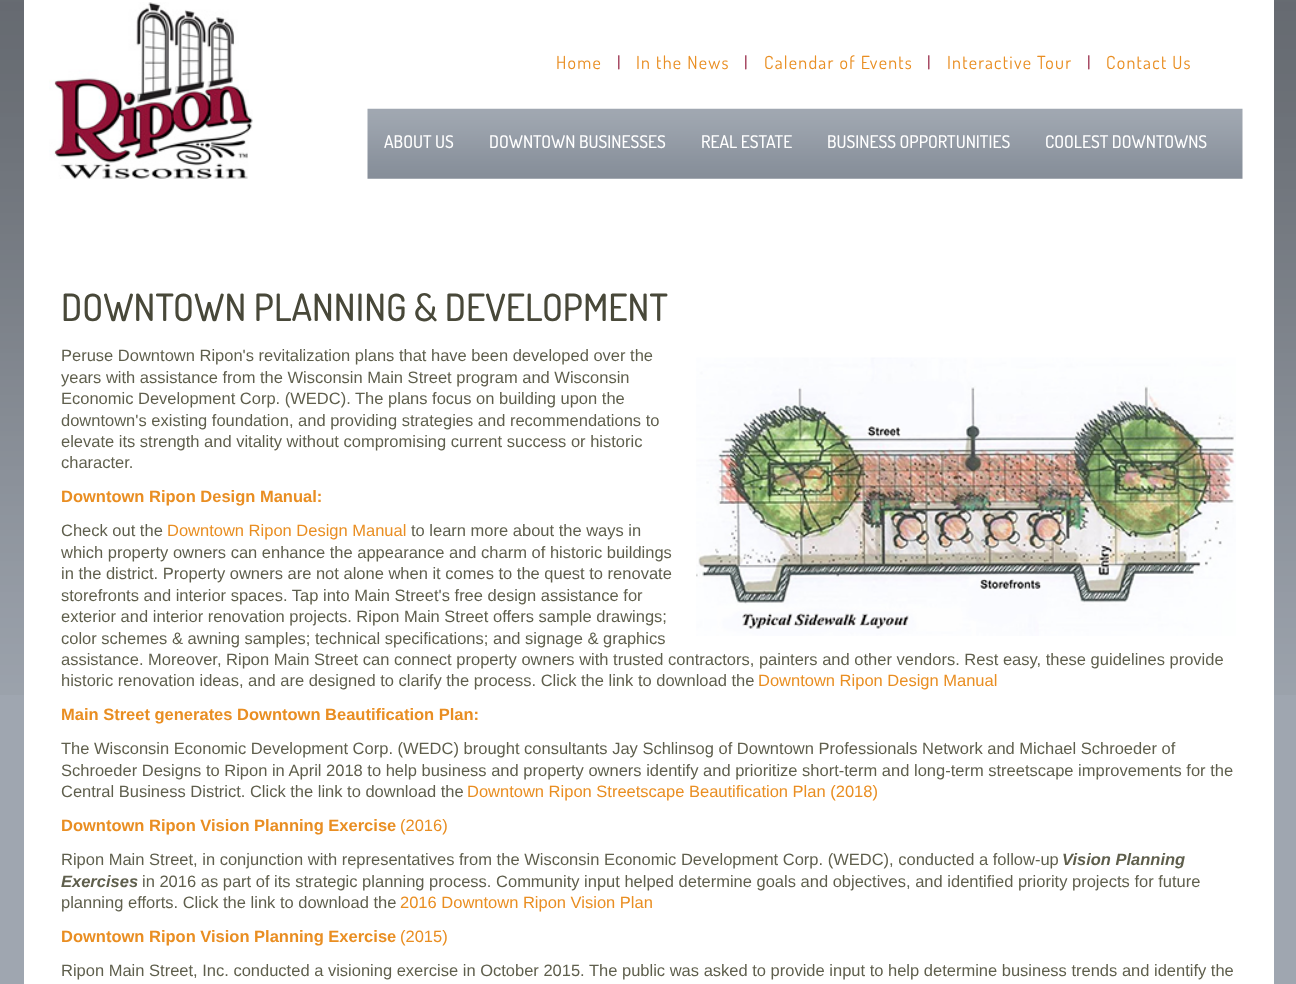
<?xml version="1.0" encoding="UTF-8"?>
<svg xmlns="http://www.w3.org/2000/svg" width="1296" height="984">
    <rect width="100%" height="100%" fill="#9FA6B0"/>
    <image x="0" y="0" width="1296" height="695" href="img_01.png"/>
    <rect x="24" y="0" width="1250" height="984" fill="#FFFFFF"/>
    <image x="49" y="2" width="204" height="177" href="img_02.png"/>
    <text x="556" y="69" font-family="Dosis" font-size="18" letter-spacing="1.25" fill="#E98E22">Home</text>
    <text x="617" y="69" font-family="Dosis" font-size="18" letter-spacing="1.25" fill="#901C3B">|</text>
    <text x="636" y="69" font-family="Dosis" font-size="18" letter-spacing="1.25" fill="#E98E22">In the News</text>
    <text x="744" y="69" font-family="Dosis" font-size="18" letter-spacing="1.25" fill="#901C3B">|</text>
    <text x="764" y="69" font-family="Dosis" font-size="18" letter-spacing="1.25" fill="#E98E22">Calendar of Events</text>
    <text x="927" y="69" font-family="Dosis" font-size="18" letter-spacing="1.25" fill="#901C3B">|</text>
    <text x="947" y="69" font-family="Dosis" font-size="18" letter-spacing="1.25" fill="#E98E22">Interactive Tour</text>
    <text x="1087" y="69" font-family="Dosis" font-size="18" letter-spacing="1.25" fill="#901C3B">|</text>
    <text x="1106" y="69" font-family="Dosis" font-size="18" letter-spacing="1.25" fill="#E98E22">Contact Us</text>
    <image x="367" y="108" width="876" height="71" href="img_03.png"/>
    <text x="384" y="148" font-family="Dosis" font-size="17.5" font-weight="500" fill="#FFFFFF">ABOUT US</text>
    <text x="489" y="148" font-family="Dosis" font-size="17.5" font-weight="500" fill="#FFFFFF">DOWNTOWN BUSINESSES</text>
    <text x="701" y="148" font-family="Dosis" font-size="17.5" font-weight="500" fill="#FFFFFF">REAL ESTATE</text>
    <text x="827" y="148" font-family="Dosis" font-size="17.5" font-weight="500" fill="#FFFFFF">BUSINESS OPPORTUNITIES</text>
    <text x="1045" y="148" font-family="Dosis" font-size="17.5" font-weight="500" fill="#FFFFFF">COOLEST DOWNTOWNS</text>
    <text x="61" y="321" font-family="Dosis" font-size="37.5" font-weight="500" fill="#484839">DOWNTOWN PLANNING &amp; DEVELOPMENT</text>
    <text x="61" y="361" font-family="Liberation Sans" font-size="16.5" fill="#5F5F4D">Peruse Downtown Ripon's revitalization plans that have been developed over the</text>
    <image x="696" y="357" width="540" height="279" href="img_04.png"/>
    <text font-family="Liberation Sans" font-size="16.5" fill="#5F5F4D">
        <tspan x="61" y="383">years with assistance from the Wisconsin Main Street program and Wisconsin</tspan>
        <tspan x="61" y="404">Economic Development Corp. (WEDC). The plans focus on building upon the</tspan>
        <tspan x="61" y="426">downtown's existing foundation, and providing strategies and recommendations to</tspan>
        <tspan x="61" y="447">elevate its strength and vitality without compromising current success or historic</tspan>
        <tspan x="61" y="468">character.</tspan>
    </text>
    <text x="61" y="502" font-family="Liberation Sans" font-size="16.5" font-weight="700" fill="#E98E22">Downtown Ripon Design Manual:</text>
    <text x="61" y="536" font-family="Liberation Sans" font-size="16.5" fill="#5F5F4D">Check out the</text>
    <text x="167" y="536" font-family="Liberation Sans" font-size="16.5" fill="#E98E22">Downtown Ripon Design Manual</text>
    <text x="411" y="536" font-family="Liberation Sans" font-size="16.5" fill="#5F5F4D">to learn more about the ways in</text>
    <text font-family="Liberation Sans" font-size="16.5" fill="#5F5F4D">
        <tspan x="61" y="558">which property owners can enhance the appearance and charm of historic buildings</tspan>
        <tspan x="61" y="579">in the district. Property owners are not alone when it comes to the quest to renovate</tspan>
        <tspan x="61" y="601">storefronts and interior spaces. Tap into Main Street's free design assistance for</tspan>
        <tspan x="61" y="622">exterior and interior renovation projects. Ripon Main Street offers sample drawings;</tspan>
        <tspan x="61" y="644">color schemes &amp; awning samples; technical specifications; and signage &amp; graphics</tspan>
        <tspan x="61" y="665">assistance. Moreover, Ripon Main Street can connect property owners with trusted contractors, painters and other vendors. Rest easy, these guidelines provide</tspan>
        <tspan x="61" y="686">historic renovation ideas, and are designed to clarify the process. Click the link to download the</tspan>
    </text>
    <text x="758" y="686" font-family="Liberation Sans" font-size="16.5" fill="#E98E22">Downtown Ripon Design Manual</text>
    <text x="61" y="720" font-family="Liberation Sans" font-size="16.5" font-weight="700" fill="#E98E22">Main Street generates Downtown Beautification Plan:</text>
    <text font-family="Liberation Sans" font-size="16.5" fill="#5F5F4D">
        <tspan x="61" y="754">The Wisconsin Economic Development Corp. (WEDC) brought consultants Jay Schlinsog of Downtown Professionals Network and Michael Schroeder of</tspan>
        <tspan x="61" y="776">Schroeder Designs to Ripon in April 2018 to help business and property owners identify and prioritize short-term and long-term streetscape improvements for the</tspan>
        <tspan x="61" y="797">Central Business District. Click the link to download the</tspan>
    </text>
    <text x="467" y="797" font-family="Liberation Sans" font-size="16.5" fill="#E98E22">Downtown Ripon Streetscape Beautification Plan (2018)</text>
    <text x="61" y="831" font-family="Liberation Sans" font-size="16.5" font-weight="700" fill="#E98E22">Downtown Ripon Vision Planning Exercise</text>
    <text x="400" y="831" font-family="Liberation Sans" font-size="16.5" fill="#E98E22">(2016)</text>
    <text x="61" y="865" font-family="Liberation Sans" font-size="16.5" fill="#5F5F4D">Ripon Main Street, in conjunction with representatives from the Wisconsin Economic Development Corp. (WEDC), conducted a follow-up</text>
    <text x="1062" y="865" font-family="Liberation Sans" font-size="16.5" font-weight="700" font-style="italic" fill="#5F5F4D">Vision Planning</text>
    <text x="61" y="887" font-family="Liberation Sans" font-size="16.5" font-weight="700" font-style="italic" fill="#5F5F4D">Exercises</text>
    <text x="142" y="887" font-family="Liberation Sans" font-size="16.5" fill="#5F5F4D">in 2016 as part of its strategic planning process. Community input helped determine goals and objectives, and identified priority projects for future</text>
    <text x="61" y="908" font-family="Liberation Sans" font-size="16.5" fill="#5F5F4D">planning efforts. Click the link to download the</text>
    <text x="400" y="908" font-family="Liberation Sans" font-size="16.5" fill="#E98E22">2016 Downtown Ripon Vision Plan</text>
    <text x="61" y="942" font-family="Liberation Sans" font-size="16.5" font-weight="700" fill="#E98E22">Downtown Ripon Vision Planning Exercise</text>
    <text x="400" y="942" font-family="Liberation Sans" font-size="16.5" fill="#E98E22">(2015)</text>
    <text x="61" y="976" font-family="Liberation Sans" font-size="16.5" fill="#5F5F4D">Ripon Main Street, Inc. conducted a visioning exercise in October 2015. The public was asked to provide input to help determine business trends and identify the</text>
</svg>
